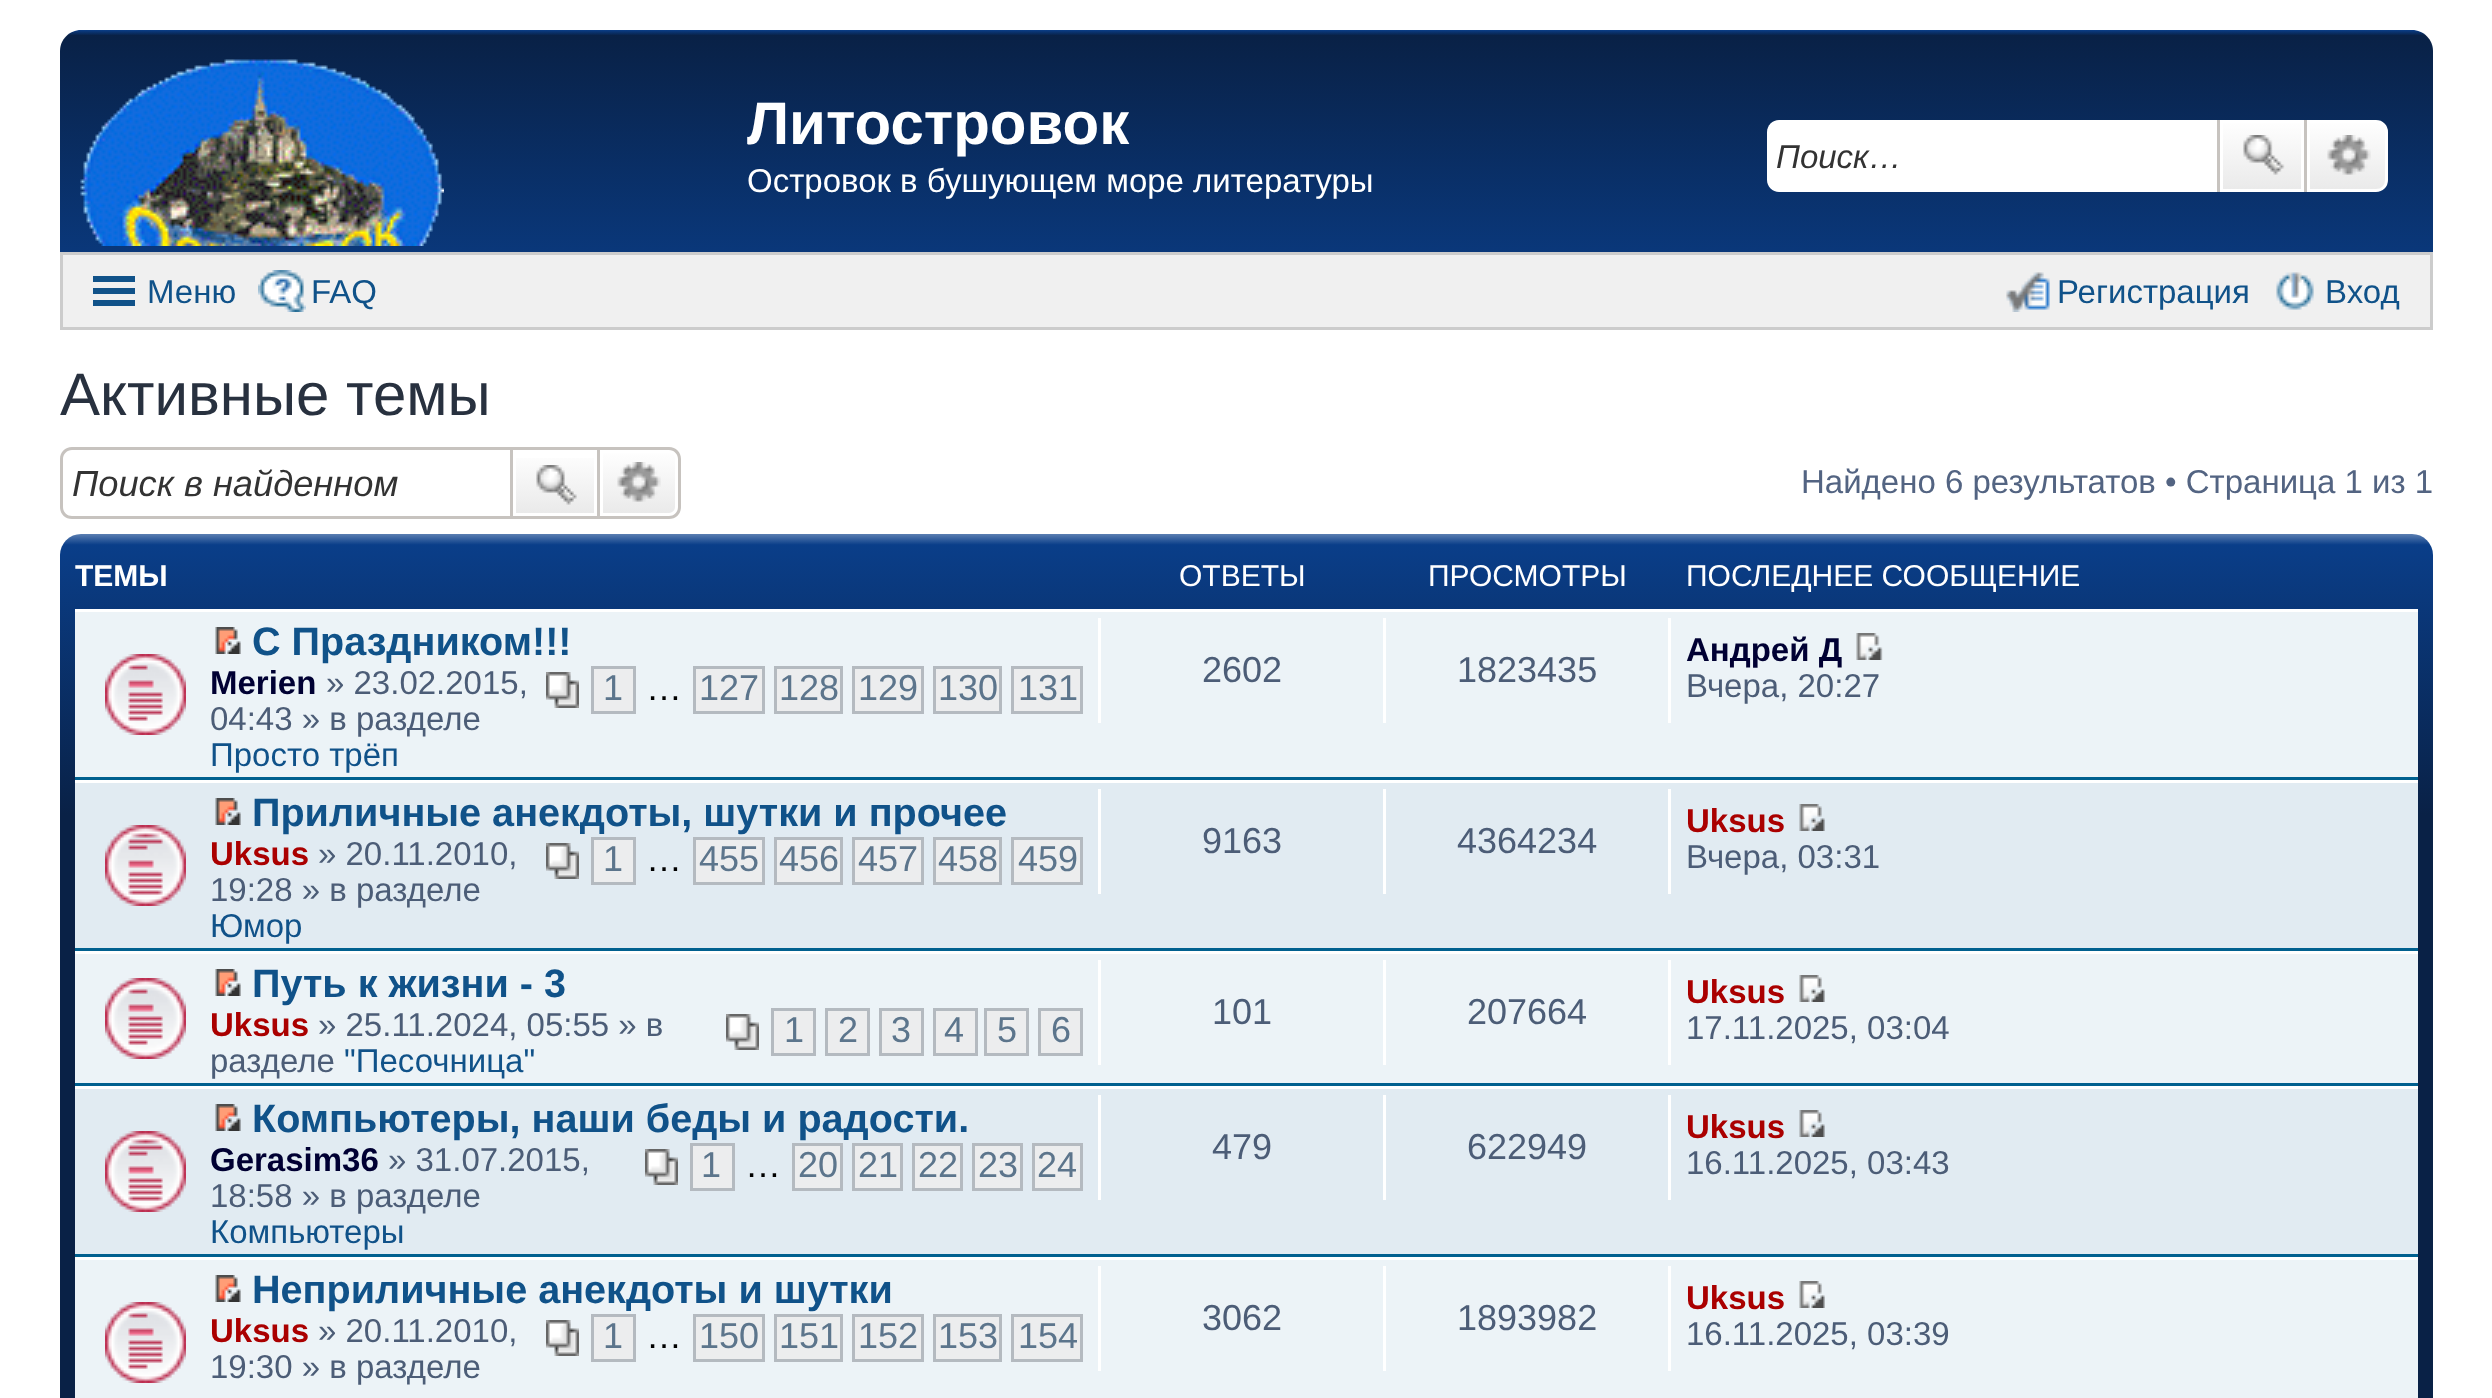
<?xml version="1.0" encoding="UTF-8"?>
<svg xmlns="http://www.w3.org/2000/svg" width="2492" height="1398">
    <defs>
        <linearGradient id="g1" gradientUnits="userSpaceOnUse" x1="1247" y1="30" x2="1247" y2="306"><stop offset="0" stop-color="#0A3E89"/><stop offset="0.02" stop-color="#092146"/><stop offset="1" stop-color="#0A3D87"/></linearGradient>
        <linearGradient id="g2" gradientUnits="userSpaceOnUse" x1="2262" y1="120" x2="2262" y2="192"><stop offset="0" stop-color="#FFFFFF"/><stop offset="1" stop-color="#E9E9E9"/></linearGradient>
        <linearGradient id="g3" gradientUnits="userSpaceOnUse" x1="2348" y1="120" x2="2348" y2="192"><stop offset="0" stop-color="#FFFFFF"/><stop offset="1" stop-color="#E9E9E9"/></linearGradient>
        <linearGradient id="g4" gradientUnits="userSpaceOnUse" x1="555" y1="450" x2="555" y2="516"><stop offset="0" stop-color="#FFFFFF"/><stop offset="1" stop-color="#E9E9E9"/></linearGradient>
        <linearGradient id="g5" gradientUnits="userSpaceOnUse" x1="639" y1="450" x2="639" y2="516"><stop offset="0" stop-color="#FFFFFF"/><stop offset="1" stop-color="#E9E9E9"/></linearGradient>
        <linearGradient id="g6" gradientUnits="userSpaceOnUse" x1="1247" y1="534" x2="1247" y2="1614"><stop offset="0" stop-color="#5B7FB2"/><stop offset="0.01" stop-color="#0A3E89"/><stop offset="0.26" stop-color="#092146"/></linearGradient>
    </defs>
    <rect width="100%" height="100%" fill="#FFFFFF"/>
    <path d="M 81 30 H 2412 C 2423.5 30 2433 39.5 2433 51 V 252 H 60 V 51 C 60 39.5 69.5 30 81 30 Z" fill="url(#g1)"/>
    <image x="80" y="59" width="364" height="187" href="img_01.png"/>
    <text x="747" y="144" font-family="Liberation Sans" font-size="60" font-weight="700" fill="#FFFFFF">Литостровок</text>
    <text x="747" y="192" font-family="Liberation Sans" font-size="33" fill="#FFFFFF">Островок в бушующем море литературы</text>
    <path d="M 1779 120 H 2217 V 192 H 1779 C 1772.5 192 1767 186.5 1767 180 V 132 C 1767 125.5 1772.5 120 1779 120 Z" fill="#FFFFFF"/>
    <text x="1776" y="168" font-family="Liberation Sans" font-size="33" font-style="italic" fill="#333333">Поиск…</text>
    <rect x="2223" y="123" width="78" height="66" fill="url(#g2)"/>
    <rect x="2221.5" y="121.5" width="81" height="69" fill="none" stroke="#FFFFFF" stroke-width="3"/>
    <rect x="2304" y="120" width="3" height="72" fill="#C7C3BF"/>
    <rect x="2217" y="120" width="3" height="72" fill="#C7C3BF"/>
    <image x="2243" y="135" width="42" height="40" href="img_02.png"/>
    <path d="M 2308.5 121.5 H 2376 C 2382 121.5 2386.5 126 2386.5 132 V 180 C 2386.5 186 2382 190.5 2376 190.5 H 2308.5 Z" fill="url(#g3)" stroke="#FFFFFF" stroke-width="3"/>
    <image x="2327" y="135" width="44" height="40" href="img_03.png"/>
    <rect x="61.5" y="253.5" width="2370" height="75" fill="#F0F0F0" stroke="#CCCCCC" stroke-width="3"/>
    <rect x="93" y="276" width="42" height="6" fill="#105289"/>
    <rect x="93" y="288" width="42" height="6" fill="#105289"/>
    <rect x="93" y="300" width="42" height="6" fill="#105289"/>
    <text x="147" y="303" font-family="Liberation Sans" font-size="33" fill="#105289">Меню</text>
    <image x="258" y="270" width="48" height="42" href="img_04.png"/>
    <text x="311" y="303" font-family="Liberation Sans" font-size="33" fill="#105289">FAQ</text>
    <image x="2006" y="272" width="44" height="40" href="img_05.png"/>
    <text x="2057" y="303" font-family="Liberation Sans" font-size="33" fill="#105289">Регистрация</text>
    <image x="2276" y="272" width="38" height="38" href="img_06.png"/>
    <text x="2325" y="303" font-family="Liberation Sans" font-size="33" fill="#105289">Вход</text>
    <text x="60" y="415" font-family="Liberation Sans" font-size="60" fill="#28313F">Активные темы</text>
    <path d="M 72 447 H 510 V 519 H 72 C 65 519 60 514 60 507 V 459 C 60 452 65 447 72 447 Z M 72 450 H 510 V 516 H 72 C 67 516 63 512 63 507 V 459 C 63 454 67 450 72 450 Z" fill="#C7C3BF" fill-rule="evenodd"/>
    <text x="72" y="496" font-family="Liberation Sans" font-size="36.25" font-style="italic" fill="#333333">Поиск в найденном</text>
    <rect x="516" y="458" width="78" height="55" fill="url(#g4)"/>
    <rect x="511.5" y="448.5" width="87" height="69" fill="none" stroke="#C7C3BF" stroke-width="3"/>
    <image x="536" y="465" width="41" height="40" href="img_07.png"/>
    <path d="M 601.5 451.5 H 669 C 673 451.5 676.5 455 676.5 459 V 507 C 676.5 511 673 514.5 669 514.5 H 601.5 Z" fill="url(#g5)" stroke="#FFFFFF" stroke-width="3"/>
    <path d="M 600 447 H 669 C 676 447 681 452 681 459 V 507 C 681 514 676 519 669 519 H 600 Z M 600 450 H 669 C 674 450 678 454 678 459 V 507 C 678 512 674 516 669 516 H 600 Z" fill="#C7C3BF" fill-rule="evenodd"/>
    <image x="617" y="462" width="44" height="40" href="img_08.png"/>
    <text x="1801" y="493" font-family="Liberation Sans" font-size="33" fill="#536482">Найдено 6 результатов • Страница 1 из 1</text>
    <rect x="60" y="534" width="2373" height="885" rx="21" fill="url(#g6)"/>
    <text x="75" y="586" font-family="Liberation Sans" font-size="30" font-weight="700" fill="#FFFFFF">ТЕМЫ</text>
    <text x="1179" y="586" font-family="Liberation Sans" font-size="30" fill="#FFFFFF">ОТВЕТЫ</text>
    <text x="1428" y="586" font-family="Liberation Sans" font-size="30" fill="#FFFFFF">ПРОСМОТРЫ</text>
    <text x="1686" y="586" font-family="Liberation Sans" font-size="30" fill="#FFFFFF">ПОСЛЕДНЕЕ СООБЩЕНИЕ</text>
    <rect x="75" y="612" width="2343" height="165" fill="#ECF3F7"/>
    <rect x="75" y="609" width="2343" height="3" fill="#FFFFFF"/>
    <rect x="75" y="777" width="2343" height="3" fill="#00608F"/>
    <image x="105" y="654" width="81" height="81" href="img_09.png"/>
    <image x="215" y="627" width="26" height="27" href="img_10.png"/>
    <text x="252" y="655" font-family="Liberation Sans" font-size="39.6" font-weight="700" fill="#105289">С Праздником!!!</text>
    <text x="210" y="694" font-family="Liberation Sans" font-size="33" font-weight="700" fill="#000033">Merien</text>
    <text x="326" y="694" font-family="Liberation Sans" font-size="33" fill="#4C5D77">» 23.02.2015,</text>
    <image x="546" y="672" width="33" height="36" href="img_11.png"/>
    <rect x="592.5" y="667.5" width="42" height="45" fill="#ECEDEE" stroke="#B4BAC0" stroke-width="3"/>
    <text x="603" y="700" font-family="Liberation Sans" font-size="36" fill="#5C758C">1</text>
    <text x="646" y="700" font-family="Liberation Sans" font-size="36" fill="#000000">…</text>
    <rect x="694.5" y="667.5" width="69" height="45" fill="#ECEDEE" stroke="#B4BAC0" stroke-width="3"/>
    <text x="699" y="700" font-family="Liberation Sans" font-size="36" fill="#5C758C">127</text>
    <rect x="775.5" y="667.5" width="66" height="45" fill="#ECEDEE" stroke="#B4BAC0" stroke-width="3"/>
    <text x="779" y="700" font-family="Liberation Sans" font-size="36" fill="#5C758C">128</text>
    <rect x="853.5" y="667.5" width="69" height="45" fill="#ECEDEE" stroke="#B4BAC0" stroke-width="3"/>
    <text x="858" y="700" font-family="Liberation Sans" font-size="36" fill="#5C758C">129</text>
    <rect x="934.5" y="667.5" width="66" height="45" fill="#ECEDEE" stroke="#B4BAC0" stroke-width="3"/>
    <text x="938" y="700" font-family="Liberation Sans" font-size="36" fill="#5C758C">130</text>
    <rect x="1012.5" y="667.5" width="69" height="45" fill="#ECEDEE" stroke="#B4BAC0" stroke-width="3"/>
    <text x="1018" y="700" font-family="Liberation Sans" font-size="36" fill="#5C758C">131</text>
    <text x="210" y="730" font-family="Liberation Sans" font-size="33" fill="#4C5D77">04:43 » в разделе</text>
    <text x="210" y="766" font-family="Liberation Sans" font-size="33" fill="#105289">Просто трёп</text>
    <rect x="1098" y="618" width="3" height="105" fill="#FFFFFF"/>
    <text x="1202" y="682" font-family="Liberation Sans" font-size="36" fill="#4C5D77">2602</text>
    <rect x="1383" y="618" width="3" height="105" fill="#FFFFFF"/>
    <text x="1457" y="682" font-family="Liberation Sans" font-size="36" fill="#4C5D77">1823435</text>
    <rect x="1668" y="618" width="3" height="105" fill="#FFFFFF"/>
    <text x="1686" y="661" font-family="Liberation Sans" font-size="33" font-weight="700" fill="#000033">Андрей Д</text>
    <image x="1856" y="633" width="27" height="27" href="img_12.png"/>
    <text x="1686" y="697" font-family="Liberation Sans" font-size="33" fill="#4C5D77">Вчера, 20:27</text>
    <rect x="75" y="783" width="2343" height="165" fill="#E1EBF2"/>
    <rect x="75" y="780" width="2343" height="3" fill="#FFFFFF"/>
    <rect x="75" y="948" width="2343" height="3" fill="#00608F"/>
    <image x="105" y="825" width="81" height="81" href="img_13.png"/>
    <image x="215" y="798" width="26" height="27" href="img_14.png"/>
    <text x="252" y="826" font-family="Liberation Sans" font-size="39.6" font-weight="700" fill="#105289">Приличные анекдоты, шутки и прочее</text>
    <text x="210" y="865" font-family="Liberation Sans" font-size="33" font-weight="700" fill="#AA0000">Uksus</text>
    <text x="318" y="865" font-family="Liberation Sans" font-size="33" fill="#4C5D77">» 20.11.2010,</text>
    <image x="546" y="843" width="33" height="36" href="img_15.png"/>
    <rect x="592.5" y="838.5" width="42" height="45" fill="#ECEDEE" stroke="#B4BAC0" stroke-width="3"/>
    <text x="603" y="871" font-family="Liberation Sans" font-size="36" fill="#5C758C">1</text>
    <text x="646" y="871" font-family="Liberation Sans" font-size="36" fill="#000000">…</text>
    <rect x="694.5" y="838.5" width="69" height="45" fill="#ECEDEE" stroke="#B4BAC0" stroke-width="3"/>
    <text x="699" y="871" font-family="Liberation Sans" font-size="36" fill="#5C758C">455</text>
    <rect x="775.5" y="838.5" width="66" height="45" fill="#ECEDEE" stroke="#B4BAC0" stroke-width="3"/>
    <text x="779" y="871" font-family="Liberation Sans" font-size="36" fill="#5C758C">456</text>
    <rect x="853.5" y="838.5" width="69" height="45" fill="#ECEDEE" stroke="#B4BAC0" stroke-width="3"/>
    <text x="858" y="871" font-family="Liberation Sans" font-size="36" fill="#5C758C">457</text>
    <rect x="934.5" y="838.5" width="66" height="45" fill="#ECEDEE" stroke="#B4BAC0" stroke-width="3"/>
    <text x="938" y="871" font-family="Liberation Sans" font-size="36" fill="#5C758C">458</text>
    <rect x="1012.5" y="838.5" width="69" height="45" fill="#ECEDEE" stroke="#B4BAC0" stroke-width="3"/>
    <text x="1018" y="871" font-family="Liberation Sans" font-size="36" fill="#5C758C">459</text>
    <text x="210" y="901" font-family="Liberation Sans" font-size="33" fill="#4C5D77">19:28 » в разделе</text>
    <text x="210" y="937" font-family="Liberation Sans" font-size="33" fill="#105289">Юмор</text>
    <rect x="1098" y="789" width="3" height="105" fill="#FFFFFF"/>
    <text x="1202" y="853" font-family="Liberation Sans" font-size="36" fill="#4C5D77">9163</text>
    <rect x="1383" y="789" width="3" height="105" fill="#FFFFFF"/>
    <text x="1457" y="853" font-family="Liberation Sans" font-size="36" fill="#4C5D77">4364234</text>
    <rect x="1668" y="789" width="3" height="105" fill="#FFFFFF"/>
    <text x="1686" y="832" font-family="Liberation Sans" font-size="33" font-weight="700" fill="#AA0000">Uksus</text>
    <image x="1799" y="804" width="26" height="27" href="img_16.png"/>
    <text x="1686" y="868" font-family="Liberation Sans" font-size="33" fill="#4C5D77">Вчера, 03:31</text>
    <rect x="75" y="954" width="2343" height="129" fill="#ECF3F7"/>
    <rect x="75" y="951" width="2343" height="3" fill="#FFFFFF"/>
    <rect x="75" y="1083" width="2343" height="3" fill="#00608F"/>
    <image x="105" y="978" width="81" height="81" href="img_09.png"/>
    <image x="215" y="969" width="26" height="27" href="img_10.png"/>
    <text x="252" y="997" font-family="Liberation Sans" font-size="39.6" font-weight="700" fill="#105289">Путь к жизни - 3</text>
    <text x="210" y="1036" font-family="Liberation Sans" font-size="33" font-weight="700" fill="#AA0000">Uksus</text>
    <text x="318" y="1036" font-family="Liberation Sans" font-size="33" fill="#4C5D77">» 25.11.2024, 05:55 » в</text>
    <image x="726" y="1014" width="33" height="36" href="img_17.png"/>
    <rect x="772.5" y="1009.5" width="42" height="45" fill="#ECEDEE" stroke="#B4BAC0" stroke-width="3"/>
    <text x="784" y="1042" font-family="Liberation Sans" font-size="36" fill="#5C758C">1</text>
    <rect x="826.5" y="1009.5" width="42" height="45" fill="#ECEDEE" stroke="#B4BAC0" stroke-width="3"/>
    <text x="838" y="1042" font-family="Liberation Sans" font-size="36" fill="#5C758C">2</text>
    <rect x="880.5" y="1009.5" width="42" height="45" fill="#ECEDEE" stroke="#B4BAC0" stroke-width="3"/>
    <text x="891" y="1042" font-family="Liberation Sans" font-size="36" fill="#5C758C">3</text>
    <rect x="934.5" y="1009.5" width="42" height="45" fill="#ECEDEE" stroke="#B4BAC0" stroke-width="3"/>
    <text x="944" y="1042" font-family="Liberation Sans" font-size="36" fill="#5C758C">4</text>
    <rect x="985.5" y="1009.5" width="42" height="45" fill="#ECEDEE" stroke="#B4BAC0" stroke-width="3"/>
    <text x="997" y="1042" font-family="Liberation Sans" font-size="36" fill="#5C758C">5</text>
    <rect x="1039.5" y="1009.5" width="42" height="45" fill="#ECEDEE" stroke="#B4BAC0" stroke-width="3"/>
    <text x="1051" y="1042" font-family="Liberation Sans" font-size="36" fill="#5C758C">6</text>
    <text x="210" y="1072" font-family="Liberation Sans" font-size="33" fill="#4C5D77">разделе</text>
    <text x="344" y="1072" font-family="Liberation Sans" font-size="33" fill="#105289">"Песочница"</text>
    <rect x="1098" y="960" width="3" height="105" fill="#FFFFFF"/>
    <text x="1212" y="1024" font-family="Liberation Sans" font-size="36" fill="#4C5D77">101</text>
    <rect x="1383" y="960" width="3" height="105" fill="#FFFFFF"/>
    <text x="1467" y="1024" font-family="Liberation Sans" font-size="36" fill="#4C5D77">207664</text>
    <rect x="1668" y="960" width="3" height="105" fill="#FFFFFF"/>
    <text x="1686" y="1003" font-family="Liberation Sans" font-size="33" font-weight="700" fill="#AA0000">Uksus</text>
    <image x="1799" y="975" width="26" height="27" href="img_18.png"/>
    <text x="1686" y="1039" font-family="Liberation Sans" font-size="33" fill="#4C5D77">17.11.2025, 03:04</text>
    <rect x="75" y="1089" width="2343" height="165" fill="#E1EBF2"/>
    <rect x="75" y="1086" width="2343" height="3" fill="#FFFFFF"/>
    <rect x="75" y="1254" width="2343" height="3" fill="#00608F"/>
    <image x="105" y="1131" width="81" height="81" href="img_13.png"/>
    <image x="215" y="1104" width="26" height="27" href="img_14.png"/>
    <text x="252" y="1132" font-family="Liberation Sans" font-size="39.6" font-weight="700" fill="#105289">Компьютеры, наши беды и радости.</text>
    <text x="210" y="1171" font-family="Liberation Sans" font-size="33" font-weight="700" fill="#000033">Gerasim36</text>
    <text x="388" y="1171" font-family="Liberation Sans" font-size="33" fill="#4C5D77">» 31.07.2015,</text>
    <image x="645" y="1149" width="33" height="36" href="img_15.png"/>
    <rect x="691.5" y="1144.5" width="42" height="45" fill="#ECEDEE" stroke="#B4BAC0" stroke-width="3"/>
    <text x="701" y="1177" font-family="Liberation Sans" font-size="36" fill="#5C758C">1</text>
    <text x="745" y="1177" font-family="Liberation Sans" font-size="36" fill="#000000">…</text>
    <rect x="793.5" y="1144.5" width="48" height="45" fill="#ECEDEE" stroke="#B4BAC0" stroke-width="3"/>
    <text x="798" y="1177" font-family="Liberation Sans" font-size="36" fill="#5C758C">20</text>
    <rect x="853.5" y="1144.5" width="48" height="45" fill="#ECEDEE" stroke="#B4BAC0" stroke-width="3"/>
    <text x="858" y="1177" font-family="Liberation Sans" font-size="36" fill="#5C758C">21</text>
    <rect x="913.5" y="1144.5" width="48" height="45" fill="#ECEDEE" stroke="#B4BAC0" stroke-width="3"/>
    <text x="918" y="1177" font-family="Liberation Sans" font-size="36" fill="#5C758C">22</text>
    <rect x="973.5" y="1144.5" width="48" height="45" fill="#ECEDEE" stroke="#B4BAC0" stroke-width="3"/>
    <text x="978" y="1177" font-family="Liberation Sans" font-size="36" fill="#5C758C">23</text>
    <rect x="1033.5" y="1144.5" width="48" height="45" fill="#ECEDEE" stroke="#B4BAC0" stroke-width="3"/>
    <text x="1037" y="1177" font-family="Liberation Sans" font-size="36" fill="#5C758C">24</text>
    <text x="210" y="1207" font-family="Liberation Sans" font-size="33" fill="#4C5D77">18:58 » в разделе</text>
    <text x="210" y="1243" font-family="Liberation Sans" font-size="33" fill="#105289">Компьютеры</text>
    <rect x="1098" y="1095" width="3" height="105" fill="#FFFFFF"/>
    <text x="1212" y="1159" font-family="Liberation Sans" font-size="36" fill="#4C5D77">479</text>
    <rect x="1383" y="1095" width="3" height="105" fill="#FFFFFF"/>
    <text x="1467" y="1159" font-family="Liberation Sans" font-size="36" fill="#4C5D77">622949</text>
    <rect x="1668" y="1095" width="3" height="105" fill="#FFFFFF"/>
    <text x="1686" y="1138" font-family="Liberation Sans" font-size="33" font-weight="700" fill="#AA0000">Uksus</text>
    <image x="1799" y="1110" width="26" height="27" href="img_16.png"/>
    <text x="1686" y="1174" font-family="Liberation Sans" font-size="33" fill="#4C5D77">16.11.2025, 03:43</text>
    <rect x="75" y="1260" width="2343" height="138" fill="#ECF3F7"/>
    <rect x="75" y="1257" width="2343" height="3" fill="#FFFFFF"/>
    <image x="105" y="1302" width="81" height="81" href="img_09.png"/>
    <image x="215" y="1275" width="26" height="27" href="img_10.png"/>
    <text x="252" y="1303" font-family="Liberation Sans" font-size="39.6" font-weight="700" fill="#105289">Неприличные анекдоты и шутки</text>
    <text x="210" y="1342" font-family="Liberation Sans" font-size="33" font-weight="700" fill="#AA0000">Uksus</text>
    <text x="318" y="1342" font-family="Liberation Sans" font-size="33" fill="#4C5D77">» 20.11.2010,</text>
    <image x="546" y="1320" width="33" height="36" href="img_11.png"/>
    <rect x="592.5" y="1315.5" width="42" height="45" fill="#ECEDEE" stroke="#B4BAC0" stroke-width="3"/>
    <text x="603" y="1348" font-family="Liberation Sans" font-size="36" fill="#5C758C">1</text>
    <text x="646" y="1348" font-family="Liberation Sans" font-size="36" fill="#000000">…</text>
    <rect x="694.5" y="1315.5" width="69" height="45" fill="#ECEDEE" stroke="#B4BAC0" stroke-width="3"/>
    <text x="699" y="1348" font-family="Liberation Sans" font-size="36" fill="#5C758C">150</text>
    <rect x="775.5" y="1315.5" width="66" height="45" fill="#ECEDEE" stroke="#B4BAC0" stroke-width="3"/>
    <text x="779" y="1348" font-family="Liberation Sans" font-size="36" fill="#5C758C">151</text>
    <rect x="853.5" y="1315.5" width="69" height="45" fill="#ECEDEE" stroke="#B4BAC0" stroke-width="3"/>
    <text x="858" y="1348" font-family="Liberation Sans" font-size="36" fill="#5C758C">152</text>
    <rect x="934.5" y="1315.5" width="66" height="45" fill="#ECEDEE" stroke="#B4BAC0" stroke-width="3"/>
    <text x="938" y="1348" font-family="Liberation Sans" font-size="36" fill="#5C758C">153</text>
    <rect x="1012.5" y="1315.5" width="69" height="45" fill="#ECEDEE" stroke="#B4BAC0" stroke-width="3"/>
    <text x="1018" y="1348" font-family="Liberation Sans" font-size="36" fill="#5C758C">154</text>
    <text x="210" y="1378" font-family="Liberation Sans" font-size="33" fill="#4C5D77">19:30 » в разделе</text>
    <rect x="1098" y="1266" width="3" height="105" fill="#FFFFFF"/>
    <text x="1202" y="1330" font-family="Liberation Sans" font-size="36" fill="#4C5D77">3062</text>
    <rect x="1383" y="1266" width="3" height="105" fill="#FFFFFF"/>
    <text x="1457" y="1330" font-family="Liberation Sans" font-size="36" fill="#4C5D77">1893982</text>
    <rect x="1668" y="1266" width="3" height="105" fill="#FFFFFF"/>
    <text x="1686" y="1309" font-family="Liberation Sans" font-size="33" font-weight="700" fill="#AA0000">Uksus</text>
    <image x="1799" y="1281" width="26" height="27" href="img_18.png"/>
    <text x="1686" y="1345" font-family="Liberation Sans" font-size="33" fill="#4C5D77">16.11.2025, 03:39</text>
</svg>
